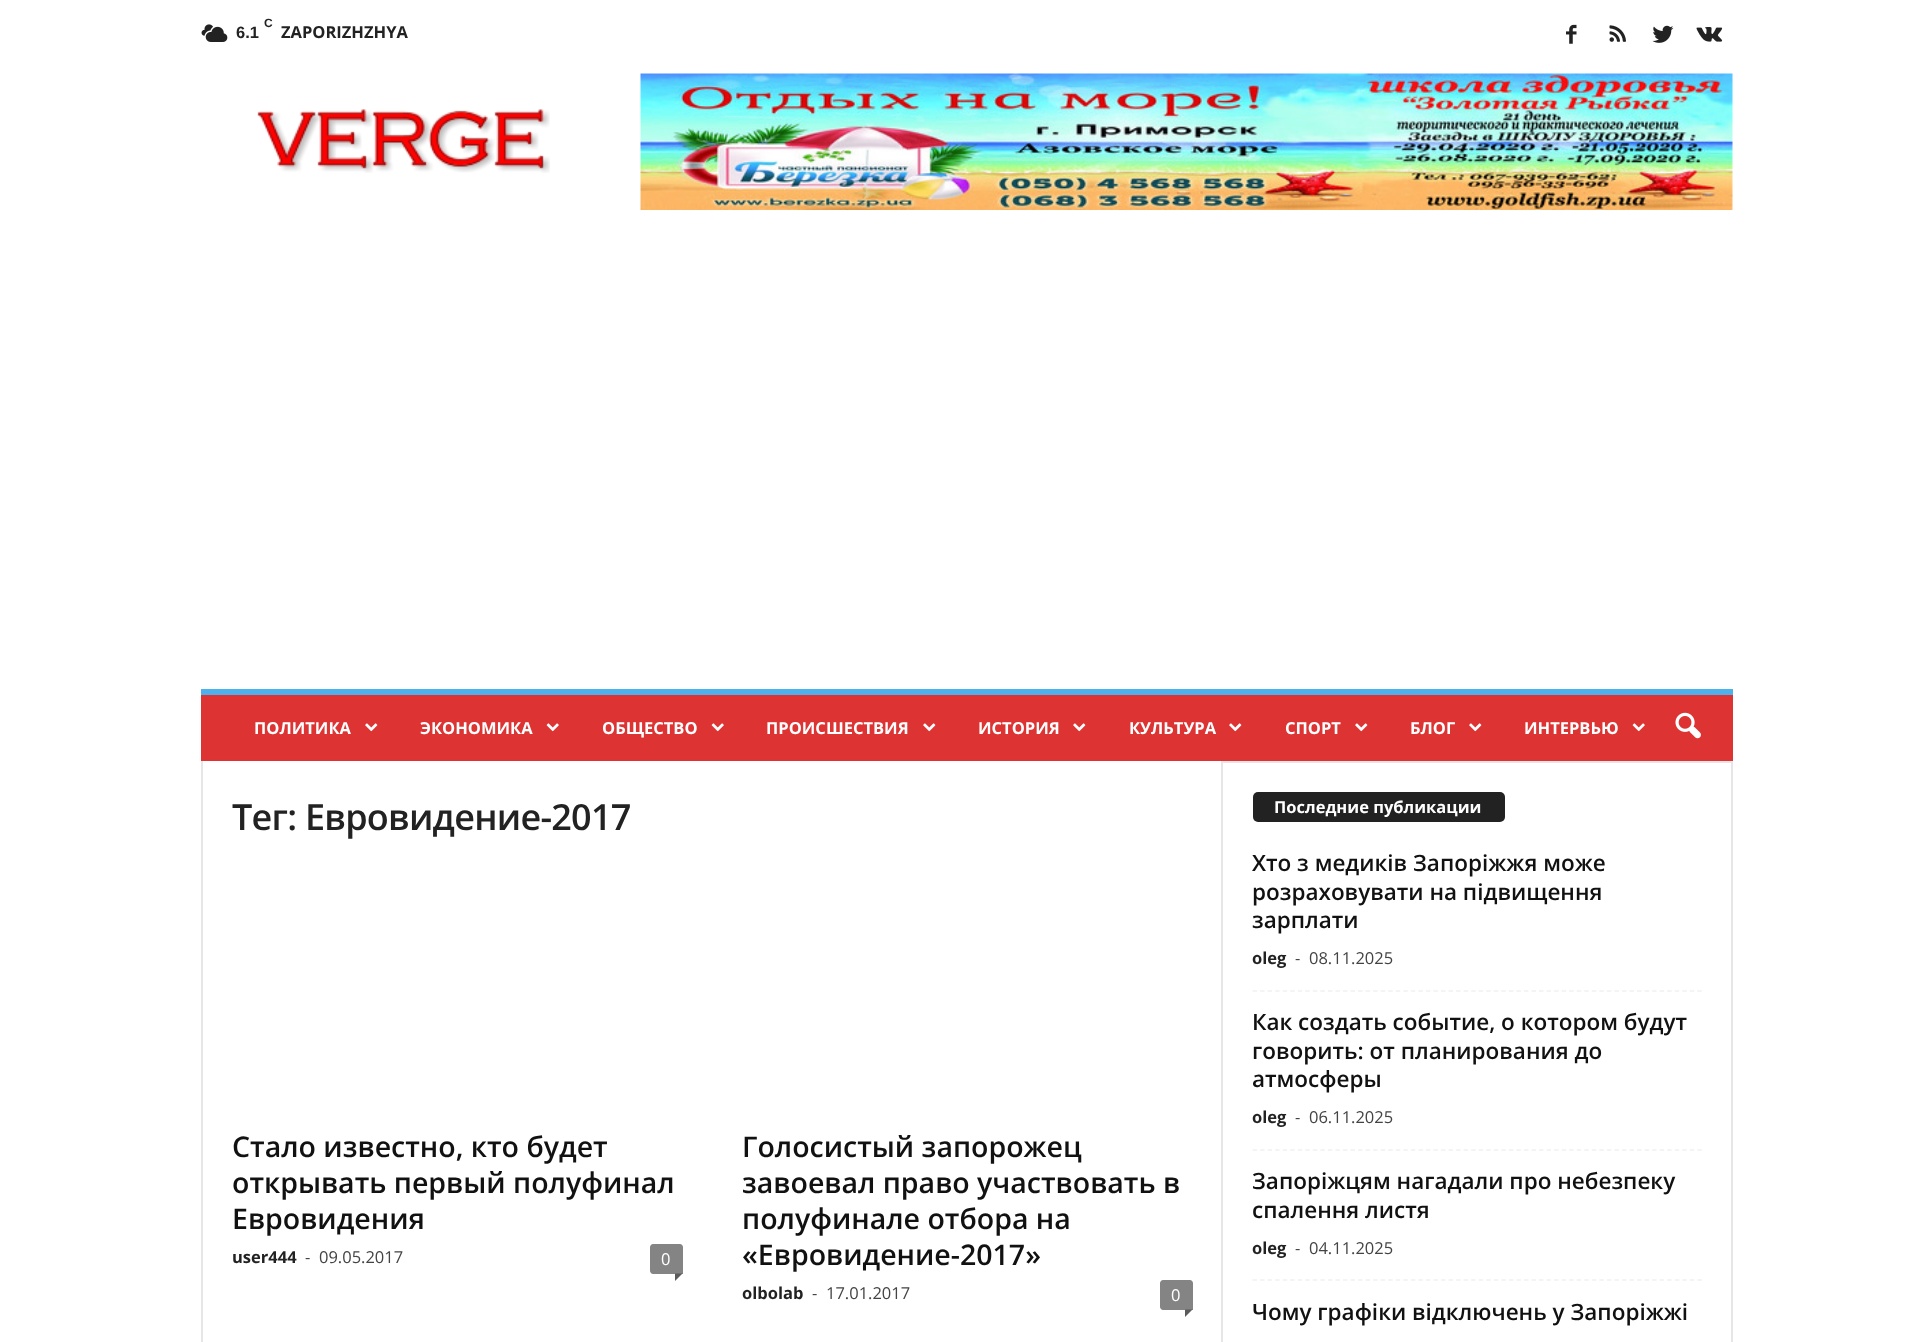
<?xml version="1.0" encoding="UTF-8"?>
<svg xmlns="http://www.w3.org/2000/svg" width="1931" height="1342">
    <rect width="100%" height="100%" fill="#FFFFFF"/>
    <image x="201" y="24" width="27" height="18" href="img_01.png"/>
    <text x="264" y="27" font-family="Liberation Sans" font-size="12" font-weight="700" fill="#222222">C</text>
    <text x="236" y="38" font-family="Liberation Sans" font-size="16.5" font-weight="700" fill="#222222">6.1</text>
    <text x="281" y="38" font-family="Open Sans" font-size="16.5" font-weight="700" fill="#222222">ZAPORIZHZHYA</text>
    <image x="1566" y="24" width="11" height="20" href="img_02.png"/>
    <image x="1609" y="25" width="17" height="17" href="img_03.png"/>
    <image x="1652" y="25" width="22" height="18" href="img_04.png"/>
    <image x="1696" y="27" width="27" height="15" href="img_05.png"/>
    <image x="257" y="109" width="293" height="64" href="img_06.png"/>
    <image x="640" y="73" width="1093" height="137" href="img_07.png"/>
    <rect x="201" y="695" width="1532" height="66" fill="#DD3333"/>
    <rect x="201" y="689" width="1532" height="6" fill="#4DB2EC"/>
    <text x="254" y="734" font-family="Open Sans" font-size="16.5" font-weight="700" fill="#FFFFFF">ПОЛИТИКА</text>
    <image x="365" y="723" width="13" height="9" href="img_08.png"/>
    <text x="420" y="734" font-family="Open Sans" font-size="16.5" font-weight="700" fill="#FFFFFF">ЭКОНОМИКА</text>
    <image x="546" y="723" width="13" height="9" href="img_09.png"/>
    <text x="602" y="734" font-family="Open Sans" font-size="16.5" font-weight="700" fill="#FFFFFF">ОБЩЕСТВО</text>
    <image x="711" y="723" width="13" height="9" href="img_09.png"/>
    <text x="766" y="734" font-family="Open Sans" font-size="16.5" font-weight="700" fill="#FFFFFF">ПРОИСШЕСТВИЯ</text>
    <image x="923" y="723" width="13" height="9" href="img_08.png"/>
    <text x="978" y="734" font-family="Open Sans" font-size="16.5" font-weight="700" fill="#FFFFFF">ИСТОРИЯ</text>
    <image x="1073" y="723" width="13" height="9" href="img_08.png"/>
    <text x="1129" y="734" font-family="Open Sans" font-size="16.5" font-weight="700" fill="#FFFFFF">КУЛЬТУРА</text>
    <image x="1229" y="723" width="13" height="9" href="img_08.png"/>
    <text x="1285" y="734" font-family="Open Sans" font-size="16.5" font-weight="700" fill="#FFFFFF">СПОРТ</text>
    <image x="1355" y="723" width="13" height="9" href="img_08.png"/>
    <text x="1410" y="734" font-family="Open Sans" font-size="16.5" font-weight="700" fill="#FFFFFF">БЛОГ</text>
    <image x="1469" y="723" width="13" height="9" href="img_08.png"/>
    <text x="1524" y="734" font-family="Open Sans" font-size="16.5" font-weight="700" fill="#FFFFFF">ИНТЕРВЬЮ</text>
    <image x="1632" y="723" width="13" height="9" href="img_09.png"/>
    <image x="1675" y="712" width="26" height="27" href="img_10.png"/>
    <rect x="201" y="761" width="2" height="581" fill="#E6E6E6"/>
    <text x="232" y="830" font-family="Open Sans" font-size="36" font-weight="600" letter-spacing="-0.75" fill="#222222">Тег: Евровидение-2017</text>
    <text font-family="Open Sans" font-size="28.5" font-weight="600" fill="#111111">
        <tspan x="232" y="1157">Стало известно, кто будет</tspan>
        <tspan x="232" y="1193">открывать первый полуфинал</tspan>
        <tspan x="232" y="1229">Евровидения</tspan>
    </text>
    <text x="232" y="1263" font-family="Open Sans" font-size="16.5" font-weight="700" fill="#222222">user444</text>
    <text x="305" y="1263" font-family="Open Sans" font-size="16.5" fill="#444444">-</text>
    <text x="319" y="1263" font-family="Open Sans" font-size="16.5" fill="#444444">09.05.2017</text>
    <path d="M 653 1244 H 680 C 681.5 1244 683 1245.5 683 1247 V 1274 H 653 C 651.5 1274 650 1272.5 650 1271 V 1247 C 650 1245.5 651.5 1244 653 1244 Z" fill="#848484"/>
    <text x="661" y="1265" font-family="Open Sans" font-size="16.5" fill="#FFFFFF">0</text>
    <path d="M 675 1273.5 H 682.5 L 675 1281 Z" fill="#5B5B5B"/>
    <text font-family="Open Sans" font-size="28.5" font-weight="600" fill="#111111">
        <tspan x="742" y="1157">Голосистый запорожец</tspan>
        <tspan x="742" y="1193">завоевал право участвовать в</tspan>
        <tspan x="742" y="1229">полуфинале отбора на</tspan>
        <tspan x="742" y="1265">«Евровидение-2017»</tspan>
    </text>
    <text x="742" y="1299" font-family="Open Sans" font-size="16.5" font-weight="700" fill="#222222">olbolab</text>
    <text x="812" y="1299" font-family="Open Sans" font-size="16.5" fill="#444444">-</text>
    <text x="826" y="1299" font-family="Open Sans" font-size="16.5" fill="#444444">17.01.2017</text>
    <path d="M 1163 1280 H 1190 C 1191.5 1280 1193 1281.5 1193 1283 V 1310 H 1163 C 1161.5 1310 1160 1308.5 1160 1307 V 1283 C 1160 1281.5 1161.5 1280 1163 1280 Z" fill="#848484"/>
    <text x="1171" y="1301" font-family="Open Sans" font-size="16.5" fill="#FFFFFF">0</text>
    <path d="M 1185 1309.5 H 1192.5 L 1185 1317 Z" fill="#5B5B5B"/>
    <rect x="1221" y="761" width="2" height="581" fill="#E6E6E6"/>
    <rect x="1223" y="761" width="508" height="2" fill="#E6E6E6"/>
    <rect x="1253" y="792" width="252" height="30" rx="5" fill="#222222"/>
    <text x="1274" y="813" font-family="Open Sans" font-size="16.5" font-weight="700" fill="#FFFFFF">Последние публикации</text>
    <path d="M 1252.5 991 H 1702.5" fill="none" stroke="#F1F1F1" stroke-width="1.5" stroke-dasharray="4.5 3.04"/>
    <text font-family="Open Sans" font-size="22.5" font-weight="600" fill="#111111">
        <tspan x="1252" y="871">Хто з медиків Запоріжжя може</tspan>
        <tspan x="1252" y="900">розраховувати на підвищення</tspan>
        <tspan x="1252" y="928">зарплати</tspan>
    </text>
    <text x="1252" y="964" font-family="Open Sans" font-size="16.5" font-weight="700" fill="#222222">oleg</text>
    <text x="1295" y="964" font-family="Open Sans" font-size="16.5" fill="#444444">-</text>
    <text x="1309" y="964" font-family="Open Sans" font-size="16.5" fill="#444444">08.11.2025</text>
    <path d="M 1252.5 1150 H 1702.5" fill="none" stroke="#F1F1F1" stroke-width="1.5" stroke-dasharray="4.5 3.04"/>
    <text font-family="Open Sans" font-size="22.5" font-weight="600" fill="#111111">
        <tspan x="1252" y="1030">Как создать событие, о котором будут</tspan>
        <tspan x="1252" y="1059">говорить: от планирования до</tspan>
        <tspan x="1252" y="1087">атмосферы</tspan>
    </text>
    <text x="1252" y="1123" font-family="Open Sans" font-size="16.5" font-weight="700" fill="#222222">oleg</text>
    <text x="1295" y="1123" font-family="Open Sans" font-size="16.5" fill="#444444">-</text>
    <text x="1309" y="1123" font-family="Open Sans" font-size="16.5" fill="#444444">06.11.2025</text>
    <path d="M 1252.5 1280 H 1702.5" fill="none" stroke="#F1F1F1" stroke-width="1.5" stroke-dasharray="4.5 3.04"/>
    <text font-family="Open Sans" font-size="22.5" font-weight="600" fill="#111111">
        <tspan x="1252" y="1189">Запоріжцям нагадали про небезпеку</tspan>
        <tspan x="1252" y="1218">спалення листя</tspan>
    </text>
    <text x="1252" y="1254" font-family="Open Sans" font-size="16.5" font-weight="700" fill="#222222">oleg</text>
    <text x="1295" y="1254" font-family="Open Sans" font-size="16.5" fill="#444444">-</text>
    <text x="1309" y="1254" font-family="Open Sans" font-size="16.5" fill="#444444">04.11.2025</text>
    <text x="1252" y="1320" font-family="Open Sans" font-size="22.5" font-weight="600" fill="#111111">Чому графіки відключень у Запоріжжі</text>
    <rect x="1731" y="761" width="2" height="581" fill="#E6E6E6"/>
</svg>
